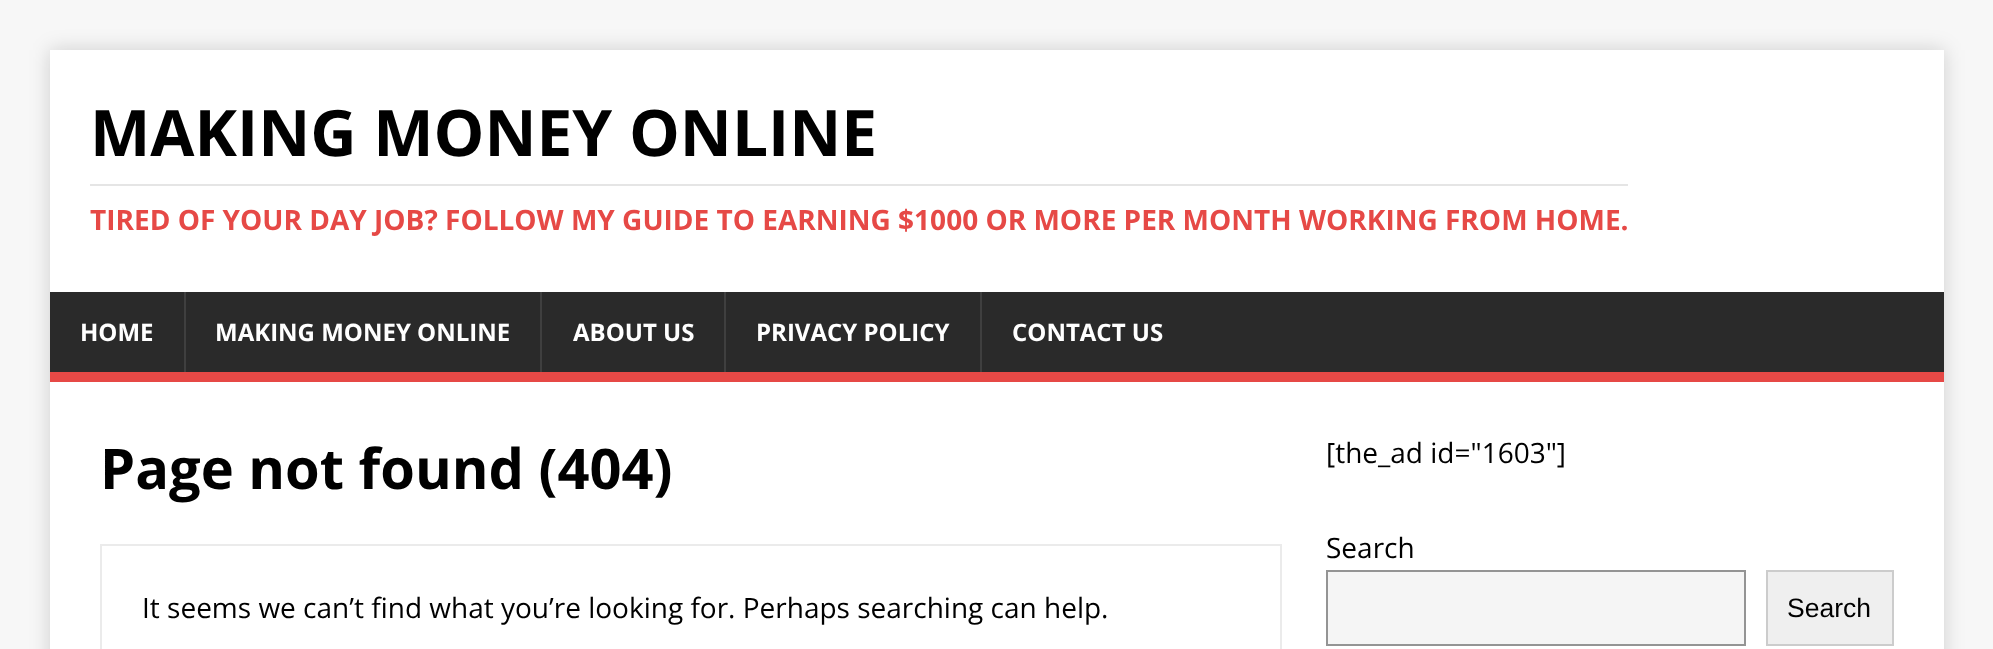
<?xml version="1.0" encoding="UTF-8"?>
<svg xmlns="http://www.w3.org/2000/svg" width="1993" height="649">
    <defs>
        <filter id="blur1" x="-50%" y="-200%" width="200%" height="500%"><feGaussianBlur stdDeviation="10"/></filter>
    </defs>
    <rect width="100%" height="100%" fill="#F7F7F7"/>
    <rect x="50" y="50" width="1894" height="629" fill="#323232" fill-opacity="0.17" filter="url(#blur1)"/>
    <rect x="50" y="50" width="1894" height="242" fill="#FFFFFF"/>
    <text x="90" y="156" font-family="Open Sans" font-size="64" font-weight="700" fill="#000000">MAKING MONEY ONLINE</text>
    <rect x="90" y="184" width="1538" height="2" fill="#E5E5E5"/>
    <text x="90" y="230" font-family="Open Sans" font-size="28" font-weight="700" fill="#E64946">TIRED OF YOUR DAY JOB? FOLLOW MY GUIDE TO EARNING $1000 OR MORE PER MONTH WORKING FROM HOME.</text>
    <rect x="50" y="292" width="1894" height="80" fill="#2A2A2A"/>
    <rect x="50" y="372" width="1894" height="10" fill="#E64946"/>
    <text x="80" y="341" font-family="Open Sans" font-size="24" font-weight="700" fill="#FFFFFF">HOME</text>
    <rect x="184" y="292" width="2" height="80" fill="#3F3F3F"/>
    <text x="215" y="341" font-family="Open Sans" font-size="24" font-weight="700" fill="#FFFFFF">MAKING MONEY ONLINE</text>
    <rect x="540" y="292" width="2" height="80" fill="#3F3F3F"/>
    <text x="573" y="341" font-family="Open Sans" font-size="24" font-weight="700" fill="#FFFFFF">ABOUT US</text>
    <rect x="724" y="292" width="2" height="80" fill="#3F3F3F"/>
    <text x="756" y="341" font-family="Open Sans" font-size="24" font-weight="700" fill="#FFFFFF">PRIVACY POLICY</text>
    <rect x="980" y="292" width="2" height="80" fill="#3F3F3F"/>
    <text x="1012" y="341" font-family="Open Sans" font-size="24" font-weight="700" fill="#FFFFFF">CONTACT US</text>
    <rect x="50" y="382" width="1894" height="267" fill="#FFFFFF"/>
    <text x="100" y="489" font-family="Open Sans" font-size="56" font-weight="700" fill="#000000">Page not found (404)</text>
    <rect x="101" y="545" width="1180" height="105" fill="none" stroke="#EBEBEB" stroke-width="2"/>
    <text x="142" y="618" font-family="Open Sans" font-size="28" fill="#000000">It seems we can’t find what you’re looking for. Perhaps searching can help.</text>
    <text x="1326" y="463" font-family="Open Sans" font-size="28" fill="#000000">[the_ad id="1603"]</text>
    <text x="1326" y="558" font-family="Open Sans" font-size="28" fill="#000000">Search</text>
    <rect x="1327" y="571" width="418" height="74" fill="#F5F5F5" stroke="#949494" stroke-width="2"/>
    <rect x="1767" y="571" width="126" height="74" fill="#EFEFEF" stroke="#CCCCCC" stroke-width="2"/>
    <text x="1787" y="617" font-family="Liberation Sans" font-size="26.5" fill="#000000">Search</text>
</svg>
